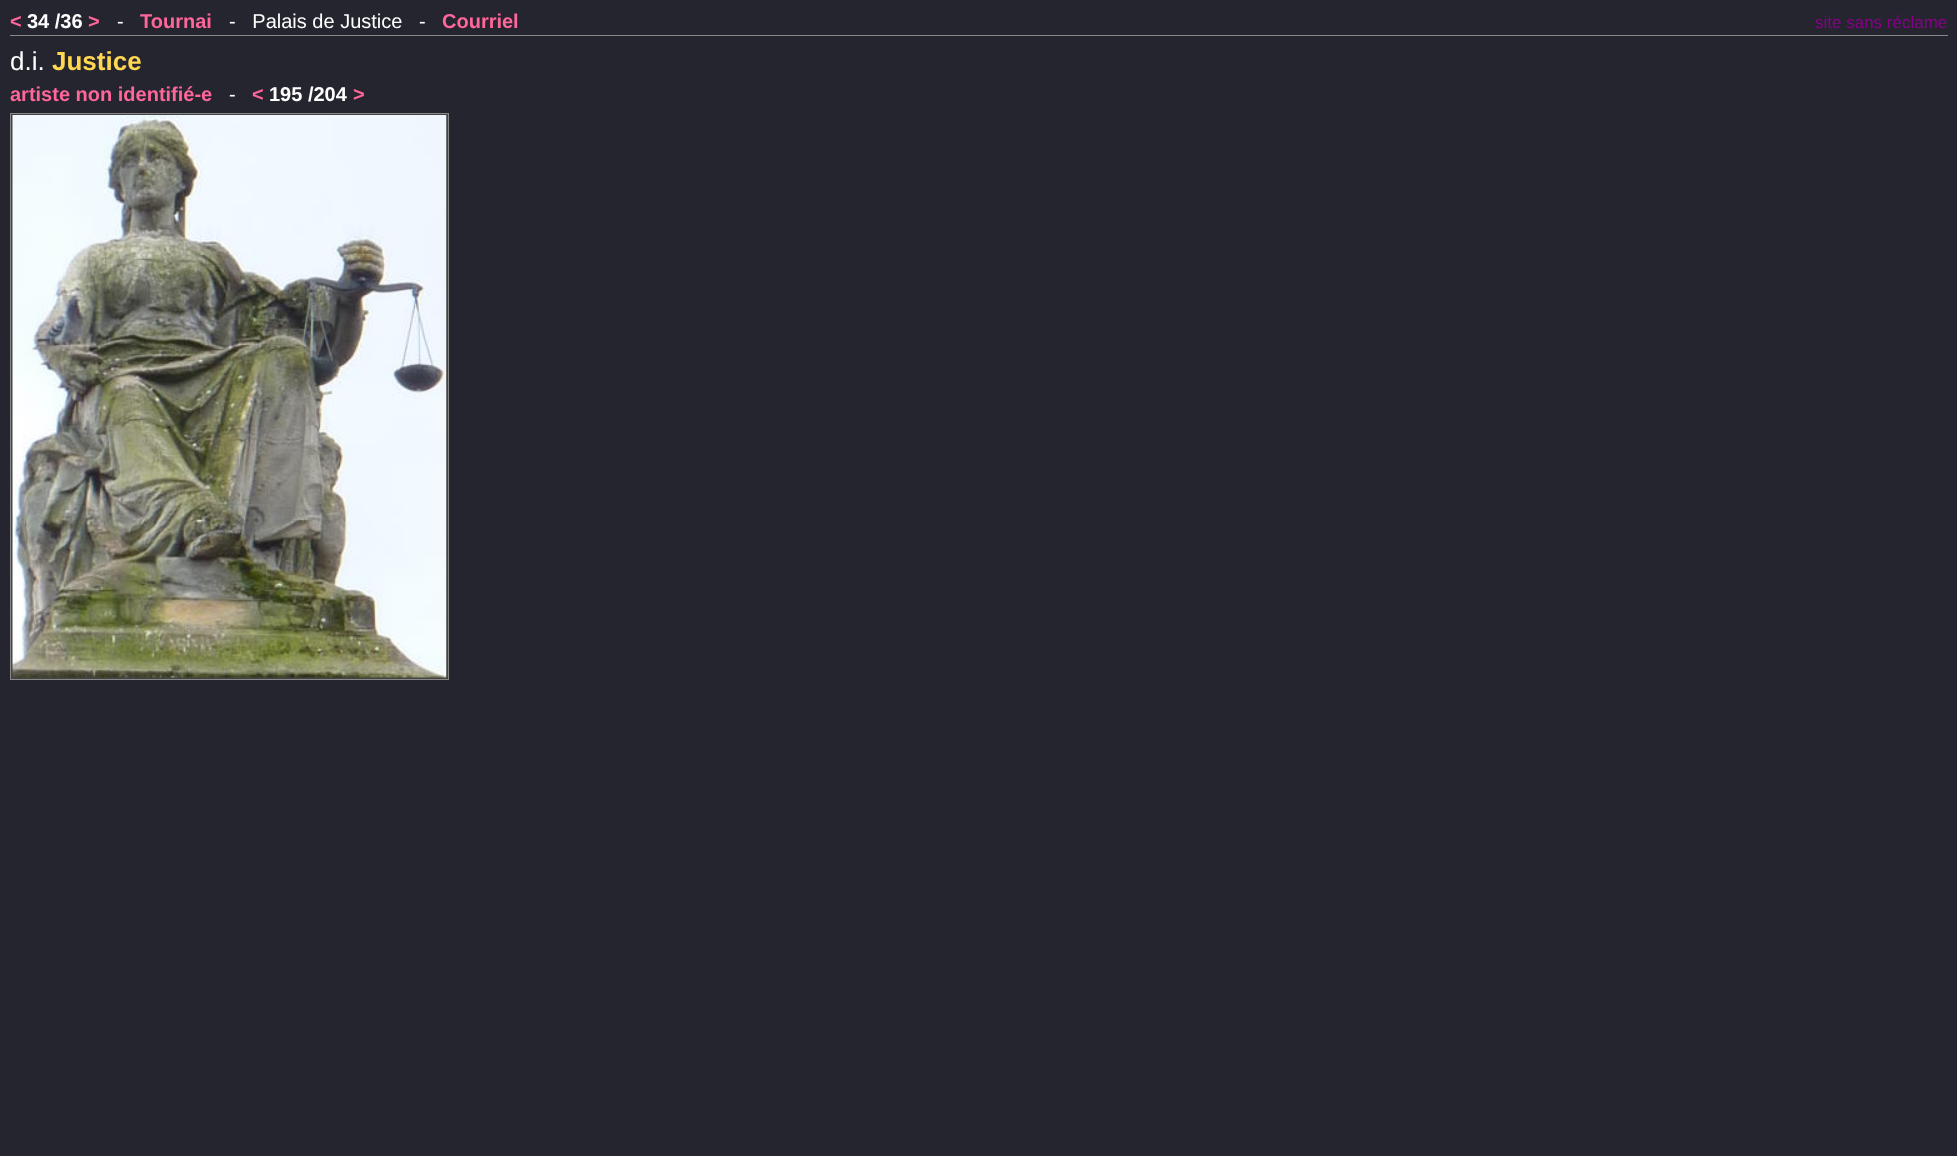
<?xml version="1.0" encoding="UTF-8"?>
<svg xmlns="http://www.w3.org/2000/svg" width="1957" height="1156">
    <rect width="100%" height="100%" fill="#252530"/>
    <text x="10" y="28" font-family="Liberation Sans" font-size="20" font-weight="700" fill="#FF6699">&lt;</text>
    <text x="27" y="28" font-family="Liberation Sans" font-size="20" font-weight="700" fill="#FFFFFF">34 /36</text>
    <text x="88" y="28" font-family="Liberation Sans" font-size="20" font-weight="700" fill="#FF6699">&gt;</text>
    <text x="117" y="28" font-family="Liberation Sans" font-size="20" fill="#FFFFFF">-</text>
    <text x="140" y="28" font-family="Liberation Sans" font-size="20" font-weight="700" fill="#FF6699">Tournai</text>
    <text x="229" y="28" font-family="Liberation Sans" font-size="20" fill="#FFFFFF" xml:space="preserve">-   Palais de Justice   -</text>
    <text x="442" y="28" font-family="Liberation Sans" font-size="20" font-weight="700" fill="#FF6699">Courriel</text>
    <text x="1815" y="28" font-family="Liberation Sans" font-size="17" fill="#880088">site sans réclame</text>
    <rect x="10" y="35" width="1938" height="1" fill="#888888"/>
    <text x="10" y="70" font-family="Liberation Sans" font-size="26" fill="#FFFFFF">d.i.</text>
    <text x="52" y="70" font-family="Liberation Sans" font-size="26" font-weight="700" fill="#FFD750">Justice</text>
    <text x="10" y="101" font-family="Liberation Sans" font-size="20" font-weight="700" fill="#FF6699">artiste non identifié-e</text>
    <text x="229" y="101" font-family="Liberation Sans" font-size="20" fill="#FFFFFF">-</text>
    <text x="252" y="101" font-family="Liberation Sans" font-size="20" font-weight="700" fill="#FF6699">&lt;</text>
    <text x="269" y="101" font-family="Liberation Sans" font-size="20" font-weight="700" fill="#FFFFFF">195 /204</text>
    <text x="353" y="101" font-family="Liberation Sans" font-size="20" font-weight="700" fill="#FF6699">&gt;</text>
    <rect x="10.5" y="113.5" width="438" height="566" fill="#444444" stroke="#888888"/>
    <image x="12" y="115" width="435" height="563" href="img_01.png"/>
</svg>
